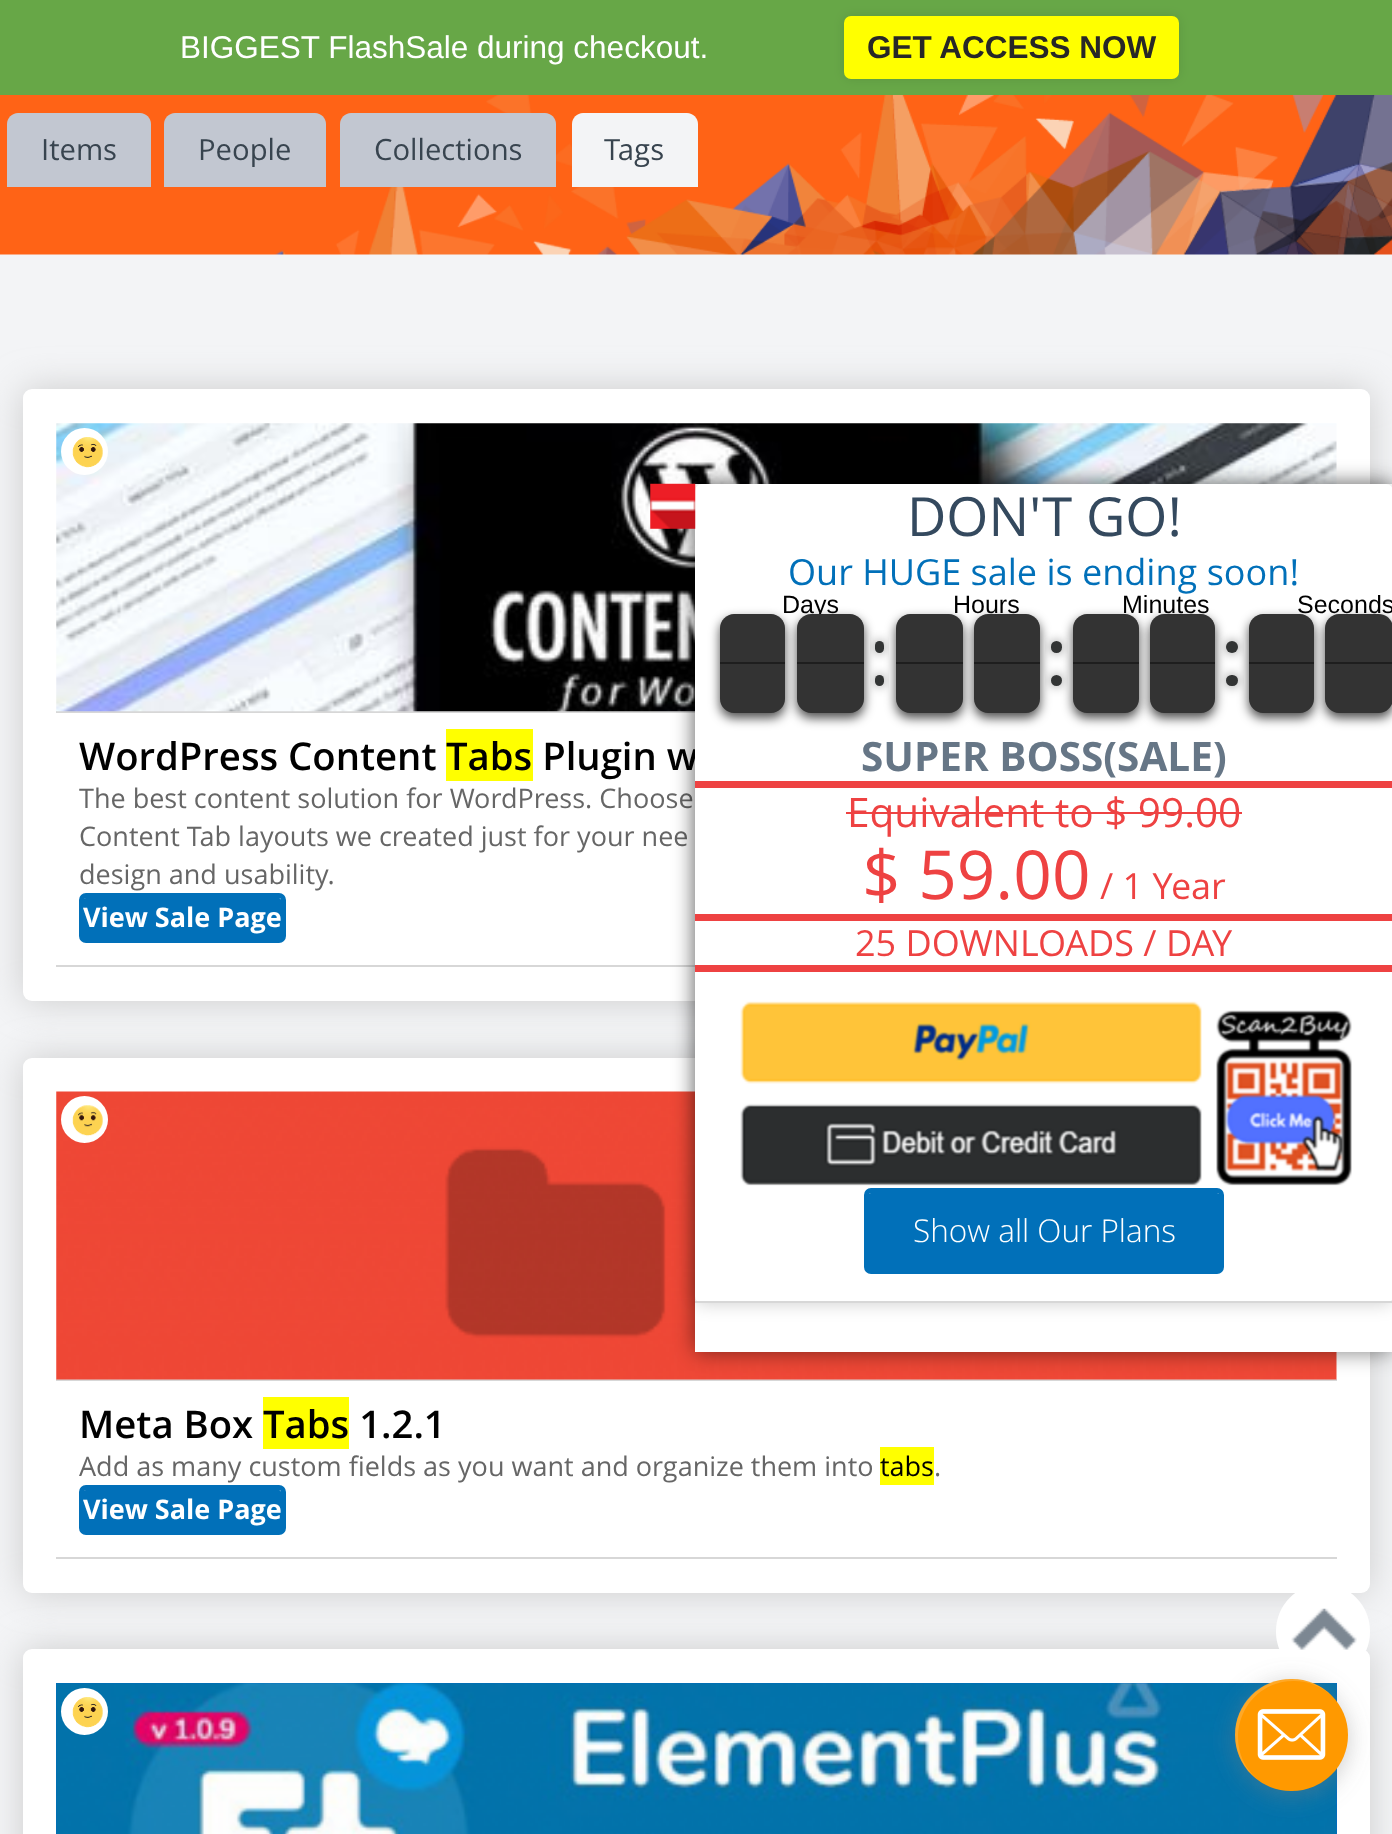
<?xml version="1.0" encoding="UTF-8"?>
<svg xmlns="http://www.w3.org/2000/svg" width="1392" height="1834">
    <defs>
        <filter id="blur1" x="-50%" y="-200%" width="200%" height="500%"><feGaussianBlur stdDeviation="5.5"/></filter>
        <filter id="blur2" x="-50%" y="-200%" width="200%" height="500%"><feGaussianBlur stdDeviation="18"/></filter>
        <filter id="blur3" x="-50%" y="-200%" width="200%" height="500%"><feGaussianBlur stdDeviation="11"/></filter>
        <filter id="blur4" x="-50%" y="-200%" width="200%" height="500%"><feGaussianBlur stdDeviation="9"/></filter>
        <filter id="blur5" x="-50%" y="-200%" width="200%" height="500%"><feGaussianBlur stdDeviation="12.5"/></filter>
    </defs>
    <rect width="100%" height="100%" fill="#F3F4F6"/>
    <rect x="0" y="0" width="1392" height="95" fill="#67A747"/>
    <text x="180" y="58" font-family="Liberation Sans" font-size="31.5" fill="#FFFFFF">BIGGEST FlashSale during checkout.</text>
    <image x="0" y="95" width="1392" height="160" href="img_01.png"/>
    <rect x="844" y="16" width="335" height="63" rx="7" fill="#000000" fill-opacity="0.1" filter="url(#blur1)"/>
    <rect x="844" y="16" width="335" height="63" rx="7" fill="#FFFF00"/>
    <text x="867" y="58" font-family="Liberation Sans" font-size="31.5" font-weight="700" fill="#272727">GET ACCESS NOW</text>
    <path d="M 18 113 H 140 C 146 113 151 118 151 124 V 187 H 7 V 124 C 7 118 12 113 18 113 Z" fill="#C2C7D1"/>
    <text x="41" y="160" font-family="Open Sans" font-size="29.25" fill="#38444F">Items</text>
    <path d="M 175 113 H 315 C 321 113 326 118 326 124 V 187 H 164 V 124 C 164 118 169 113 175 113 Z" fill="#C2C7D1"/>
    <text x="198" y="160" font-family="Open Sans" font-size="29.25" fill="#38444F">People</text>
    <path d="M 351 113 H 545 C 551 113 556 118 556 124 V 187 H 340 V 124 C 340 118 345 113 351 113 Z" fill="#C2C7D1"/>
    <text x="374" y="160" font-family="Open Sans" font-size="29.25" fill="#38444F">Collections</text>
    <path d="M 583 113 H 687 C 693 113 698 118 698 124 V 187 H 572 V 124 C 572 118 577 113 583 113 Z" fill="#F3F4F6"/>
    <text x="604" y="160" font-family="Open Sans" font-size="29.25" fill="#38444F">Tags</text>
    <rect x="23" y="389" width="1347" height="612" rx="9" fill="#CCCCCC" filter="url(#blur2)"/>
    <rect x="23" y="389" width="1347" height="612" rx="9" fill="#FFFFFF"/>
    <rect x="56" y="711" width="639" height="2" fill="#D7D7D7"/>
    <image x="56" y="423" width="1281" height="289" href="img_02.png"/>
    <circle cx="84.5" cy="451.5" r="23.5" fill="#FFFFFF"/>
    <image x="72" y="437" width="31" height="31" href="img_03.png"/>
    <rect x="56" y="965" width="639" height="2" fill="#D7D7D7"/>
    <text x="79" y="770" font-family="Open Sans" font-size="38.25" font-weight="600" fill="#000000">WordPress Content</text>
    <rect x="446" y="729" width="87" height="52" fill="#FFFF00"/>
    <text x="446" y="770" font-family="Open Sans" font-size="38.25" font-weight="600" fill="#000000">Tabs Plugin w</text>
    <text font-family="Open Sans" font-size="27" fill="#666666">
        <tspan x="79" y="808">The best content solution for WordPress. Choose</tspan>
        <tspan x="79" y="846">Content Tab layouts we created just for your nee</tspan>
        <tspan x="79" y="884">design and usability.</tspan>
    </text>
    <path d="M 86 898 H 279 C 280 898 281 899 281 900 V 936 H 83 V 900 C 83 899 84 898 86 898 Z" fill="#0170B9"/>
    <rect x="81.5" y="895.5" width="202" height="45" rx="4.5" fill="none" stroke="#0170B9" stroke-width="5"/>
    <rect x="83" y="936" width="201" height="2" fill="#0170B9"/>
    <text x="83" y="927" font-family="Open Sans" font-size="27" font-weight="700" fill="#FFFFFF">View Sale Page</text>
    <rect x="23" y="1058" width="1347" height="535" rx="9" fill="#CCCCCC" filter="url(#blur2)"/>
    <rect x="23" y="1058" width="1347" height="535" rx="9" fill="#FFFFFF"/>
    <rect x="56" y="1379" width="1281" height="2" fill="#D7D7D7"/>
    <image x="56" y="1091" width="1281" height="289" href="img_04.png"/>
    <circle cx="84.5" cy="1119.5" r="23.5" fill="#FFFFFF"/>
    <image x="72" y="1105" width="31" height="32" href="img_05.png"/>
    <rect x="56" y="1557" width="1281" height="2" fill="#D7D7D7"/>
    <text x="79" y="1438" font-family="Open Sans" font-size="38.25" font-weight="600" fill="#000000">Meta Box</text>
    <rect x="263" y="1397" width="86" height="52" fill="#FFFF00"/>
    <text x="263" y="1438" font-family="Open Sans" font-size="38.25" font-weight="600" fill="#000000">Tabs 1.2.1</text>
    <text x="79" y="1476" font-family="Open Sans" font-size="27" fill="#666666">Add as many custom fields as you want and organize them into</text>
    <rect x="880" y="1447" width="54" height="38" fill="#FFFF00"/>
    <text x="880" y="1476" font-family="Open Sans" font-size="27" fill="#000000">tabs</text>
    <text x="934" y="1476" font-family="Open Sans" font-size="27" fill="#666666">.</text>
    <path d="M 86 1490 H 279 C 280 1490 281 1491 281 1492 V 1528 H 83 V 1492 C 83 1491 84 1490 86 1490 Z" fill="#0170B9"/>
    <rect x="81.5" y="1487.5" width="202" height="45" rx="4.5" fill="none" stroke="#0170B9" stroke-width="5"/>
    <rect x="83" y="1528" width="201" height="2" fill="#0170B9"/>
    <text x="83" y="1519" font-family="Open Sans" font-size="27" font-weight="700" fill="#FFFFFF">View Sale Page</text>
    <rect x="23" y="1649" width="1347" height="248" rx="9" fill="#CCCCCC" filter="url(#blur2)"/>
    <rect x="23" y="1649" width="1347" height="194" rx="9" fill="#FFFFFF"/>
    <rect x="56" y="1683" width="1281" height="151" fill="#0066CC"/>
    <image x="56" y="1683" width="1281" height="151" href="img_06.png"/>
    <circle cx="84.5" cy="1711.5" r="23.5" fill="#FFFFFF"/>
    <image x="72" y="1697" width="31" height="31" href="img_07.png"/>
    <rect x="695" y="484" width="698" height="868" fill="#000000" fill-opacity="0.5" filter="url(#blur3)"/>
    <rect x="695" y="484" width="697" height="868" fill="#FFFFFF"/>
    <rect x="695" y="484" width="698" height="819" rx="7" fill="#000000" fill-opacity="0.2" filter="url(#blur4)"/>
    <rect x="695" y="484" width="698" height="819" rx="7" fill="#FFFFFF"/>
    <image x="650" y="483" width="46" height="46" href="img_08.png"/>
    <text x="907" y="536" font-family="Open Sans" font-size="54" fill="#34495E">DON'T GO!</text>
    <text x="788" y="585" font-family="Open Sans" font-size="36" fill="#0170B9">Our HUGE sale is ending soon!</text>
    <rect x="720" y="619" width="65" height="99" rx="14" fill="#000000" fill-opacity="0.7" filter="url(#blur1)"/>
    <text x="782" y="613" font-family="Liberation Sans" font-size="25" fill="#000000">Days</text>
    <rect x="797" y="619" width="67" height="99" rx="14" fill="#000000" fill-opacity="0.7" filter="url(#blur1)"/>
    <path d="M 734 614 H 771 C 778.5 614 785 620.5 785 628 V 664 H 720 V 628 C 720 620.5 726.5 614 734 614 Z" fill="#333333"/>
    <rect x="720" y="662" width="65" height="2" fill="#000000" fill-opacity="0.4"/>
    <path d="M 720 664 H 785 V 699 C 785 706.5 778.5 713 771 713 H 734 C 726.5 713 720 706.5 720 699 Z" fill="#333333"/>
    <text x="953" y="613" font-family="Liberation Sans" font-size="25" fill="#000000">Hours</text>
    <rect x="875" y="641" width="9" height="12" rx="4.5" fill="#000000" fill-opacity="0.5" filter="url(#blur1)"/>
    <rect x="875" y="641" width="9" height="12" rx="4.5" fill="#323434"/>
    <rect x="875" y="675" width="9" height="11" rx="4.5" fill="#000000" fill-opacity="0.5" filter="url(#blur1)"/>
    <rect x="875" y="675" width="9" height="11" rx="4.5" fill="#323434"/>
    <text x="1122" y="613" font-family="Liberation Sans" font-size="25" fill="#000000">Minutes</text>
    <rect x="1051" y="641" width="11" height="12" rx="5.5" fill="#000000" fill-opacity="0.5" filter="url(#blur1)"/>
    <rect x="974" y="619" width="66" height="99" rx="14" fill="#000000" fill-opacity="0.7" filter="url(#blur1)"/>
    <rect x="1051" y="641" width="11" height="12" rx="5.5" fill="#323434"/>
    <rect x="1051" y="675" width="11" height="11" rx="5.5" fill="#000000" fill-opacity="0.5" filter="url(#blur1)"/>
    <circle cx="1056.5" cy="680.5" r="5.5" fill="#323434"/>
    <text x="1297" y="613" font-family="Liberation Sans" font-size="25" fill="#000000">Seconds</text>
    <rect x="1226" y="641" width="12" height="12" rx="6" fill="#000000" fill-opacity="0.5" filter="url(#blur1)"/>
    <rect x="1150" y="619" width="65" height="99" rx="14" fill="#000000" fill-opacity="0.7" filter="url(#blur1)"/>
    <circle cx="1232" cy="647" r="6" fill="#323434"/>
    <rect x="1226" y="675" width="12" height="11" rx="5.5" fill="#000000" fill-opacity="0.5" filter="url(#blur1)"/>
    <rect x="1226" y="675" width="12" height="11" rx="5.5" fill="#323434"/>
    <path d="M 811 614 H 850 C 857.5 614 864 620.5 864 628 V 664 H 797 V 628 C 797 620.5 803.5 614 811 614 Z" fill="#333333"/>
    <rect x="797" y="662" width="67" height="2" fill="#000000" fill-opacity="0.4"/>
    <path d="M 797 664 H 864 V 699 C 864 706.5 857.5 713 850 713 H 811 C 803.5 713 797 706.5 797 699 Z" fill="#333333"/>
    <rect x="896" y="619" width="67" height="99" rx="14" fill="#000000" fill-opacity="0.7" filter="url(#blur1)"/>
    <path d="M 910 614 H 949 C 956.5 614 963 620.5 963 628 V 664 H 896 V 628 C 896 620.5 902.5 614 910 614 Z" fill="#333333"/>
    <rect x="896" y="662" width="67" height="2" fill="#000000" fill-opacity="0.4"/>
    <path d="M 896 664 H 963 V 699 C 963 706.5 956.5 713 949 713 H 910 C 902.5 713 896 706.5 896 699 Z" fill="#333333"/>
    <path d="M 988 614 H 1026 C 1033.5 614 1040 620.5 1040 628 V 664 H 974 V 628 C 974 620.5 980.5 614 988 614 Z" fill="#333333"/>
    <rect x="974" y="662" width="66" height="2" fill="#000000" fill-opacity="0.4"/>
    <path d="M 974 664 H 1040 V 699 C 1040 706.5 1033.5 713 1026 713 H 988 C 980.5 713 974 706.5 974 699 Z" fill="#333333"/>
    <rect x="1073" y="619" width="66" height="99" rx="14" fill="#000000" fill-opacity="0.7" filter="url(#blur1)"/>
    <path d="M 1087 614 H 1125 C 1132.5 614 1139 620.5 1139 628 V 664 H 1073 V 628 C 1073 620.5 1079.5 614 1087 614 Z" fill="#333333"/>
    <rect x="1073" y="662" width="66" height="2" fill="#000000" fill-opacity="0.4"/>
    <path d="M 1073 664 H 1139 V 699 C 1139 706.5 1132.5 713 1125 713 H 1087 C 1079.5 713 1073 706.5 1073 699 Z" fill="#333333"/>
    <path d="M 1164 614 H 1201 C 1208.5 614 1215 620.5 1215 628 V 664 H 1150 V 628 C 1150 620.5 1156.5 614 1164 614 Z" fill="#333333"/>
    <rect x="1150" y="662" width="65" height="2" fill="#000000" fill-opacity="0.4"/>
    <path d="M 1150 664 H 1215 V 699 C 1215 706.5 1208.5 713 1201 713 H 1164 C 1156.5 713 1150 706.5 1150 699 Z" fill="#333333"/>
    <rect x="1249" y="619" width="65" height="99" rx="14" fill="#000000" fill-opacity="0.7" filter="url(#blur1)"/>
    <rect x="1325" y="619" width="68" height="99" rx="14" fill="#000000" fill-opacity="0.7" filter="url(#blur1)"/>
    <path d="M 1263 614 H 1300 C 1307.5 614 1314 620.5 1314 628 V 664 H 1249 V 628 C 1249 620.5 1255.5 614 1263 614 Z" fill="#333333"/>
    <rect x="1249" y="662" width="65" height="2" fill="#000000" fill-opacity="0.4"/>
    <path d="M 1249 664 H 1314 V 699 C 1314 706.5 1307.5 713 1300 713 H 1263 C 1255.5 713 1249 706.5 1249 699 Z" fill="#333333"/>
    <path d="M 1339 614 H 1379 C 1386.5 614 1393 620.5 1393 628 V 664 H 1325 V 628 C 1325 620.5 1331.5 614 1339 614 Z" fill="#333333"/>
    <rect x="1325" y="662" width="67" height="2" fill="#000000" fill-opacity="0.4"/>
    <path d="M 1325 664 H 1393 V 699 C 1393 706.5 1386.5 713 1379 713 H 1339 C 1331.5 713 1325 706.5 1325 699 Z" fill="#333333"/>
    <rect x="695" y="781" width="697" height="7" fill="#EE4242"/>
    <text x="861" y="771" font-family="Open Sans" font-size="40.5" font-weight="700" fill="#667686">SUPER BOSS(SALE)</text>
    <rect x="695" y="914" width="697" height="7" fill="#EE4242"/>
    <text x="847" y="827" font-family="Open Sans" font-size="40.5" fill="#EE4242">Equivalent to $ 99.00</text>
    <rect x="846" y="812" width="396" height="2" fill="#EE4242"/>
    <text x="862" y="899" font-family="Open Sans" font-size="67.5" fill="#EE4242">$ 59.00</text>
    <text x="1100" y="899" font-family="Open Sans" font-size="36" fill="#EE4242">/ 1 Year</text>
    <rect x="695" y="965" width="697" height="7" fill="#EE4242"/>
    <text x="855" y="956" font-family="Open Sans" font-size="36" fill="#EE4242">25 DOWNLOADS / DAY</text>
    <rect x="695" y="1301" width="697" height="2" fill="#D7D7D7"/>
    <image x="740" y="1001" width="612" height="185" href="img_09.png"/>
    <path d="M 871 1193 H 1217 C 1218 1193 1220 1194 1220 1195 V 1267 H 868 V 1195 C 868 1194 870 1193 871 1193 Z" fill="#0170B9"/>
    <rect x="866.5" y="1190.5" width="355" height="81" rx="4.5" fill="none" stroke="#0170B9" stroke-width="5"/>
    <rect x="869" y="1267" width="353" height="2" fill="#0170B9"/>
    <text x="913" y="1242" font-family="Open Sans" font-size="31.5" font-weight="300" fill="#FFFFFF">Show all Our Plans</text>
    <rect x="1276" y="1584" width="94" height="95" rx="47" fill="#FFFFFF"/>
    <image x="1291" y="1608" width="66" height="42" href="img_10.png"/>
    <rect x="1235" y="1683" width="113" height="113" rx="56.5" fill="#808080" fill-opacity="0.4" filter="url(#blur5)"/>
    <rect x="1235" y="1679" width="113" height="112" rx="56" fill="#FF9900"/>
    <path d="M 1294 1681 C 1309 1681 1322 1687 1332 1696 C 1311 1674 1273 1673 1251 1695 C 1226 1721 1231 1763 1261 1782 C 1218 1751 1239 1681 1294 1681 Z" fill="#FFFFFF" fill-opacity="0.15"/>
    <image x="1257" y="1709" width="69" height="51" href="img_11.png"/>
</svg>
